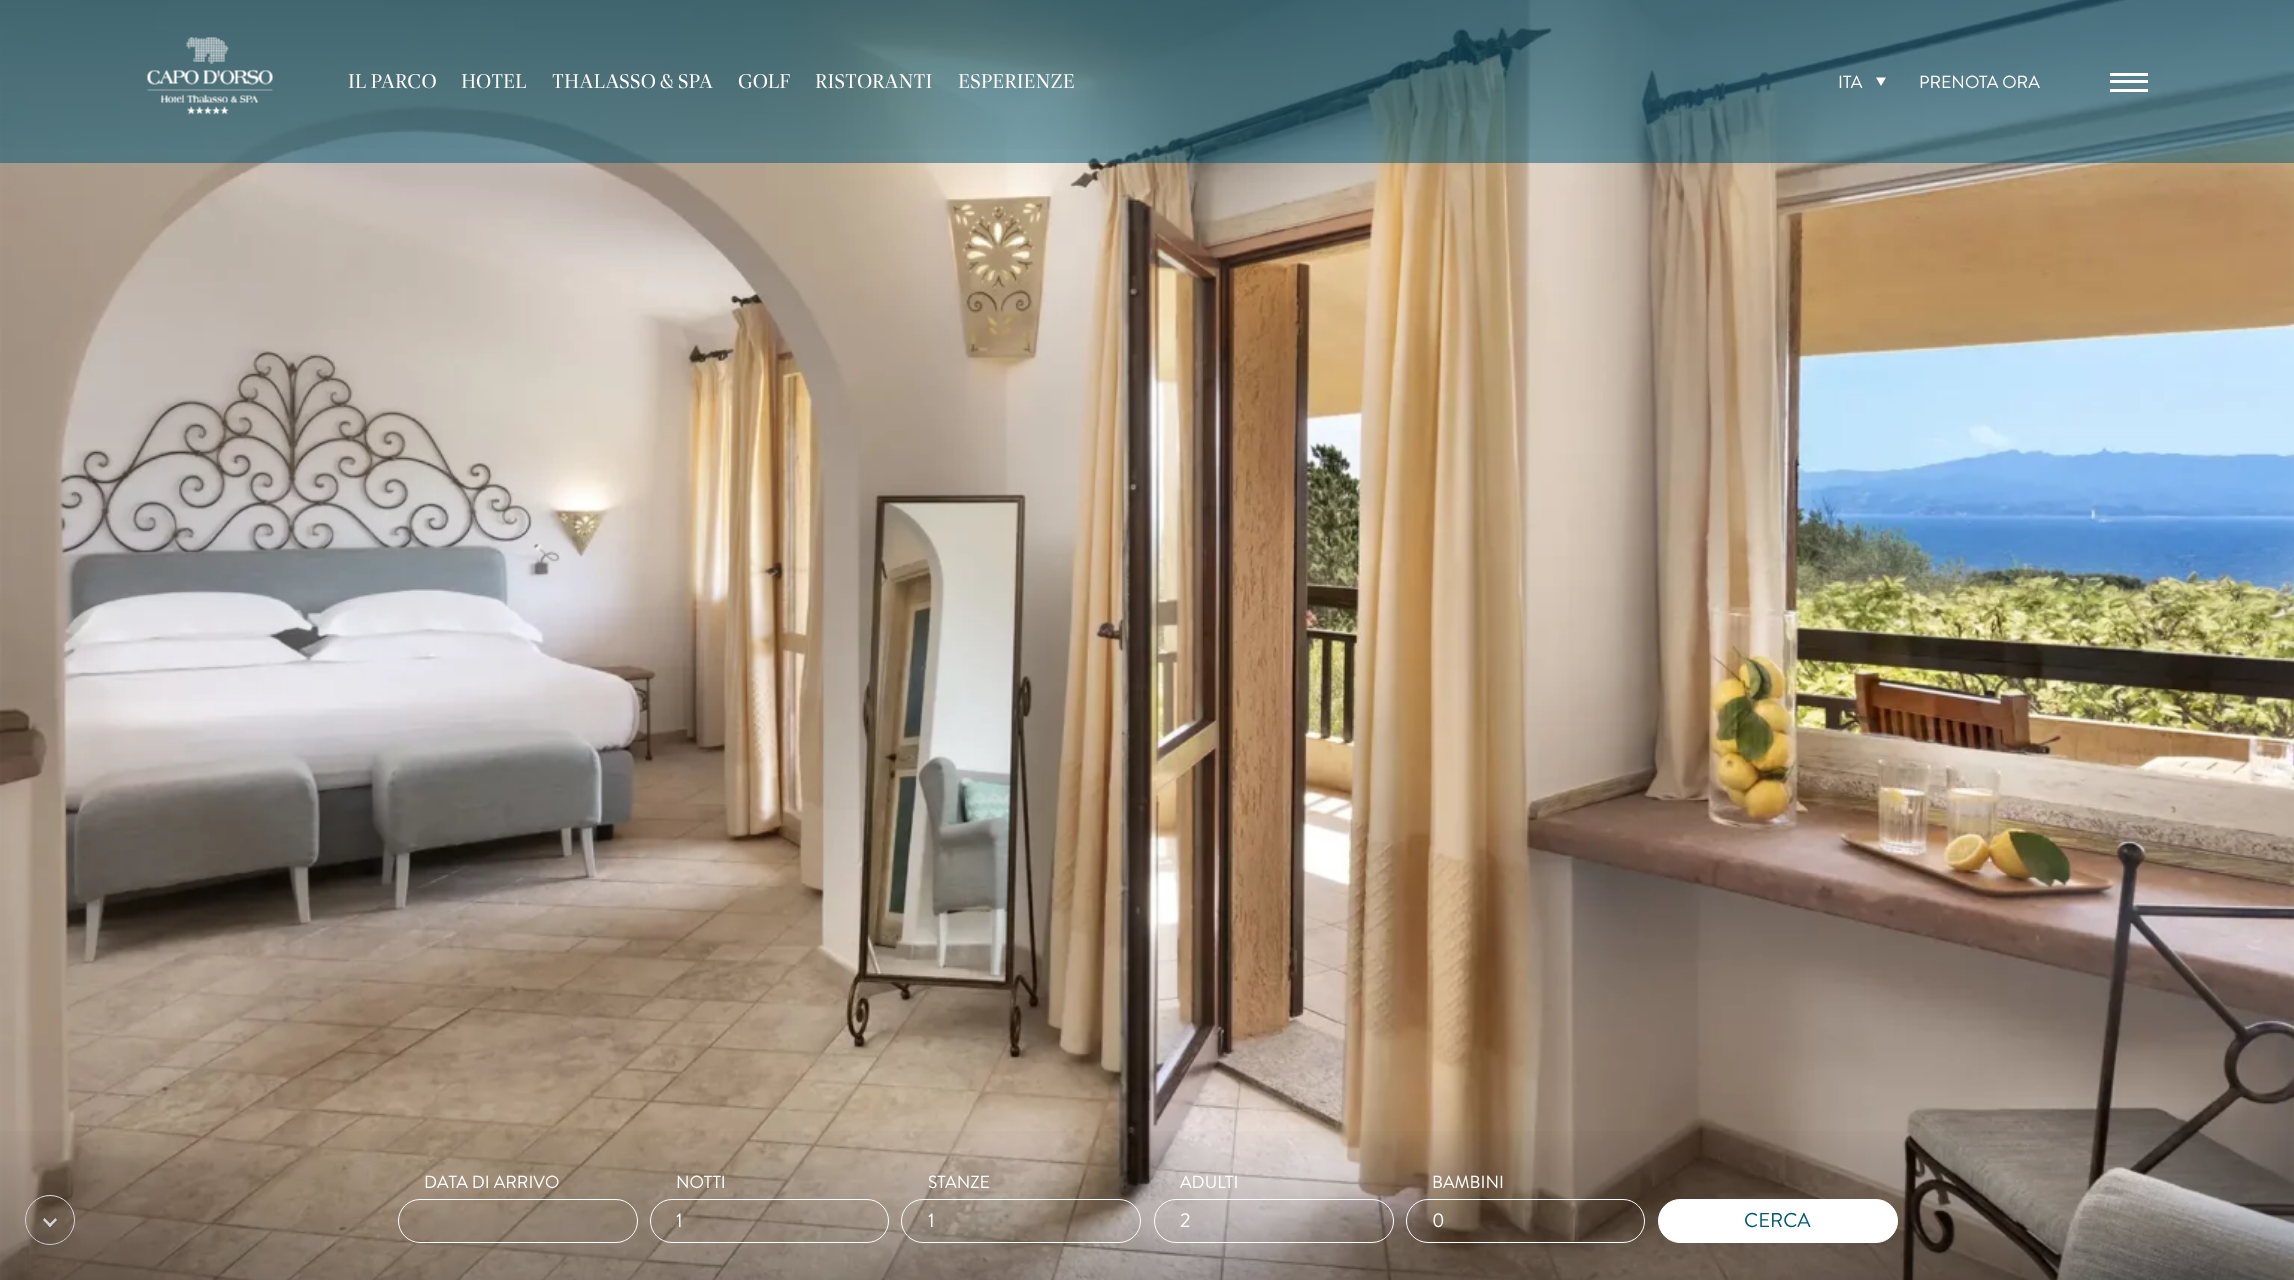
<?xml version="1.0" encoding="UTF-8"?>
<svg xmlns="http://www.w3.org/2000/svg" width="2294" height="1280">
    <defs>
        <linearGradient id="g1" gradientUnits="userSpaceOnUse" x1="1148" y1="0" x2="1148" y2="163"><stop offset="0" stop-color="#000000" stop-opacity="0.26"/><stop offset="1" stop-color="#000000" stop-opacity="0"/></linearGradient>
        <linearGradient id="g2" gradientUnits="userSpaceOnUse" x1="1148" y1="1280" x2="1148" y2="1118"><stop offset="0" stop-color="#000000" stop-opacity="0.26"/><stop offset="1" stop-color="#000000" stop-opacity="0"/></linearGradient>
    </defs>
    <rect width="100%" height="100%" fill="#FFFFFF"/>
    <image x="0" y="0" width="2294" height="1280" href="img_02.png"/>
    <rect x="0" y="0" width="2294" height="149" fill="url(#g1)"/>
    <rect x="0" y="0" width="2294" height="163" fill="#005676" fill-opacity="0.5"/>
    <image x="147" y="37" width="126" height="78" href="img_01.png"/>
    <rect x="2110" y="73" width="38" height="3" fill="#FFFFFF"/>
    <rect x="2110" y="80" width="38" height="3" fill="#FFFFFF"/>
    <rect x="2110" y="89" width="38" height="3" fill="#FFFFFF"/>
    <text x="348" y="88" font-family="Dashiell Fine" font-size="20" fill="#FFFFFF">IL PARCO</text>
    <text x="461" y="88" font-family="Dashiell Fine" font-size="20" fill="#FFFFFF">HOTEL</text>
    <text x="552" y="88" font-family="Dashiell Fine" font-size="20" fill="#FFFFFF">THALASSO &amp; SPA</text>
    <text x="738" y="88" font-family="Dashiell Fine" font-size="20" fill="#FFFFFF">GOLF</text>
    <text x="815" y="88" font-family="Dashiell Fine" font-size="20" fill="#FFFFFF">RISTORANTI</text>
    <text x="958" y="88" font-family="Dashiell Fine" font-size="20" fill="#FFFFFF">ESPERIENZE</text>
    <text x="1838" y="88" font-family="Brandon Grotesque" font-size="17.5" fill="#FFFFFF">ITA</text>
    <path d="M 1876 77.5 H 1886 L 1881 86 Z" fill="#FFFFFF"/>
    <text x="1919" y="88" font-family="Brandon Grotesque" font-size="17.5" fill="#FFFFFF">PRENOTA ORA</text>
    <circle cx="50" cy="1220" r="24.5" fill="none" stroke="#FFFFFF"/>
    <path d="M 55.5 1218 L 57 1220 L 50 1227 L 48 1225.5 Z" fill="#FFFFFF"/>
    <path d="M 44.5 1218 L 52 1225.5 L 50 1227 L 43 1220 Z" fill="#FFFFFF"/>
    <rect x="0" y="1131" width="2294" height="149" fill="url(#g2)"/>
    <text x="424" y="1188" font-family="Brandon Grotesque" font-size="17.5" fill="#FFFFFF">DATA DI ARRIVO</text>
    <rect x="398.5" y="1199.5" width="239" height="43" rx="21.5" fill="none" stroke="#FFFFFF"/>
    <text x="676" y="1188" font-family="Brandon Grotesque" font-size="17.5" fill="#FFFFFF">NOTTI</text>
    <rect x="650.5" y="1199.5" width="238" height="43" rx="21.5" fill="none" stroke="#FFFFFF"/>
    <text x="676" y="1227" font-family="Brandon Grotesque" font-size="20" fill="#FFFFFF">1</text>
    <text x="928" y="1188" font-family="Brandon Grotesque" font-size="17.5" fill="#FFFFFF">STANZE</text>
    <rect x="901.5" y="1199.5" width="239" height="43" rx="21.5" fill="none" stroke="#FFFFFF"/>
    <text x="928" y="1227" font-family="Brandon Grotesque" font-size="20" fill="#FFFFFF">1</text>
    <text x="1180" y="1188" font-family="Brandon Grotesque" font-size="17.5" fill="#FFFFFF">ADULTI</text>
    <rect x="1154.5" y="1199.5" width="239" height="43" rx="21.5" fill="none" stroke="#FFFFFF"/>
    <text x="1180" y="1227" font-family="Brandon Grotesque" font-size="20" fill="#FFFFFF">2</text>
    <text x="1432" y="1188" font-family="Brandon Grotesque" font-size="17.5" fill="#FFFFFF">BAMBINI</text>
    <rect x="1406.5" y="1199.5" width="238" height="43" rx="21.5" fill="none" stroke="#FFFFFF"/>
    <text x="1432" y="1227" font-family="Brandon Grotesque" font-size="20" fill="#FFFFFF">0</text>
    <rect x="1658.5" y="1199.5" width="239" height="43" rx="21.5" fill="#FFFFFF" stroke="#FFFFFF"/>
    <text x="1744" y="1227" font-family="Brandon Grotesque" font-size="20" fill="#005776">CERCA</text>
</svg>
